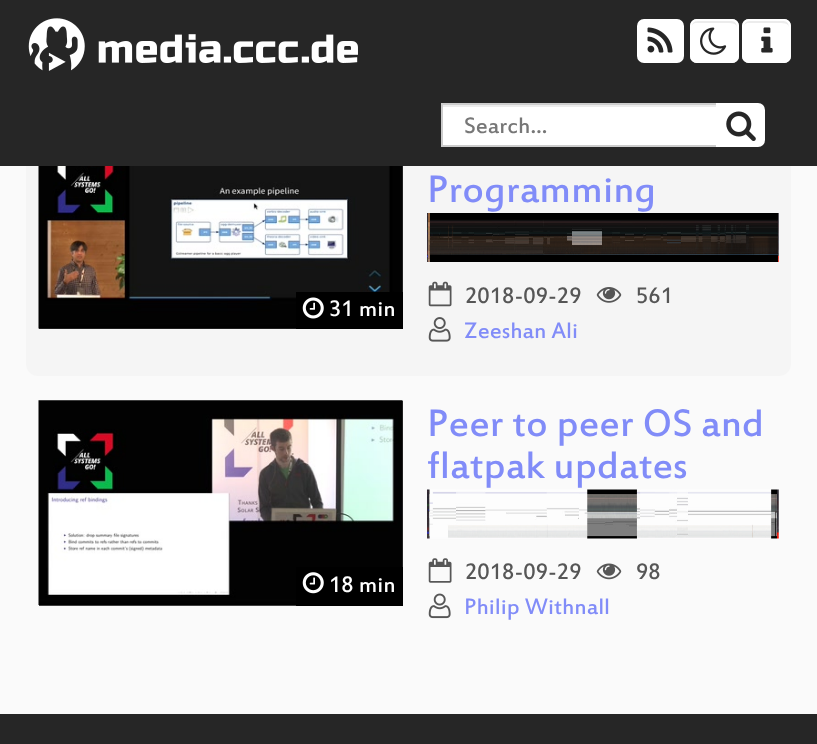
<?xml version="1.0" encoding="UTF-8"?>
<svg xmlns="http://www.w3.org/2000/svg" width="817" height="744">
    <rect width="100%" height="100%" fill="#FAFAFA"/>
    <rect x="26" y="112" width="765" height="264" rx="12" fill="#F5F5F5"/>
    <rect x="0" y="0" width="817" height="166" fill="#262626"/>
    <image x="28" y="18" width="330" height="53" href="img_01.png"/>
    <rect x="638" y="20" width="45" height="42" rx="6" fill="#FFFFFF" stroke="#FFFFFF" stroke-width="2"/>
    <image x="647" y="27" width="26" height="26" href="img_02.png"/>
    <rect x="690" y="19" width="49" height="44" rx="7" fill="#FFFFFF"/>
    <path d="M 696 23 H 726 C 734 23 737 24 737 28 C 737 20 733 21 726 21 H 702 C 690 21 691 22 691 33 C 691 29 691 23 696 23 Z M 691 57 V 53 Z" fill="#ECECEC" fill-rule="evenodd"/>
    <rect x="691" y="20" width="47" height="42" rx="6" fill="none" stroke="#FFFFFF" stroke-width="2"/>
    <image x="700" y="27" width="27" height="28" href="img_03.png"/>
    <rect x="742" y="19" width="49" height="44" rx="7" fill="#FFFFFF"/>
    <path d="M 749 23 H 778 C 786 23 789 24 789 28 C 789 20 785 21 778 21 H 755 C 748 21 744 20 744 28 C 744 25 745 23 749 23 Z M 744 57 V 53 Z" fill="#ECECEC" fill-rule="evenodd"/>
    <rect x="743" y="20" width="47" height="42" rx="6" fill="none" stroke="#FFFFFF" stroke-width="2"/>
    <image x="761" y="27" width="12" height="26" href="img_04.png"/>
    <rect x="443" y="107" width="273" height="38" fill="#FFFFFF"/>
    <rect x="443" y="105" width="273" height="2" fill="#ECECEC"/>
    <rect x="442" y="104" width="275" height="42" fill="none" stroke="#CCCCCC" stroke-width="2"/>
    <text x="464" y="133" font-family="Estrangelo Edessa" font-size="24.5" fill="#777777">Search…</text>
    <path d="M 717 104 H 758 C 761.5 104 764 106.5 764 110 V 140 C 764 143.5 761.5 146 758 146 H 717 Z" fill="#FFFFFF" stroke="#FFFFFF" stroke-width="2"/>
    <image x="726" y="111" width="30" height="30" href="img_05.png"/>
    <rect x="39" y="166" width="364" height="163" fill="#404040"/>
    <image x="38" y="166" width="365" height="163" href="img_06.png"/>
    <rect x="296" y="292" width="107" height="37" fill="#000000"/>
    <image x="302" y="297" width="22" height="22" href="img_07.png"/>
    <text x="329" y="316" font-family="Estrangelo Edessa" font-size="24.5" fill="#FFFFFF">31 min</text>
    <text x="427" y="202" font-family="Estrangelo Edessa" font-size="42" fill="#818CF8">Programming</text>
    <image x="427" y="213" width="352" height="49" href="img_08.png"/>
    <image x="428" y="281" width="24" height="26" href="img_09.png"/>
    <text x="465" y="303" font-family="Estrangelo Edessa" font-size="24.5" fill="#565656">2018-09-29</text>
    <image x="596" y="287" width="26" height="16" href="img_10.png"/>
    <text x="636" y="303" font-family="Estrangelo Edessa" font-size="24.5" fill="#565656">561</text>
    <image x="428" y="317" width="23" height="25" href="img_11.png"/>
    <text x="464" y="338" font-family="Estrangelo Edessa" font-size="24.5" fill="#818CF8">Zeeshan Ali</text>
    <rect x="39" y="401" width="364" height="205" fill="#404040"/>
    <image x="38" y="400" width="365" height="205" href="img_12.png"/>
    <rect x="296" y="567" width="107" height="39" fill="#000000"/>
    <image x="302" y="572" width="22" height="22" href="img_13.png"/>
    <text x="329" y="592" font-family="Estrangelo Edessa" font-size="24.5" fill="#FFFFFF">18 min</text>
    <text font-family="Estrangelo Edessa" font-size="42" fill="#818CF8">
        <tspan x="427" y="436">Peer to peer OS and</tspan>
        <tspan x="427" y="478">flatpak updates</tspan>
    </text>
    <image x="427" y="489" width="352" height="50" href="img_14.png"/>
    <image x="428" y="558" width="24" height="25" href="img_15.png"/>
    <text x="465" y="579" font-family="Estrangelo Edessa" font-size="24.5" fill="#565656">2018-09-29</text>
    <image x="596" y="563" width="26" height="17" href="img_16.png"/>
    <text x="636" y="579" font-family="Estrangelo Edessa" font-size="24.5" fill="#565656">98</text>
    <image x="428" y="593" width="23" height="26" href="img_17.png"/>
    <text x="464" y="614" font-family="Estrangelo Edessa" font-size="24.5" fill="#818CF8">Philip Withnall</text>
    <rect x="0" y="714" width="817" height="30" fill="#262626"/>
</svg>
